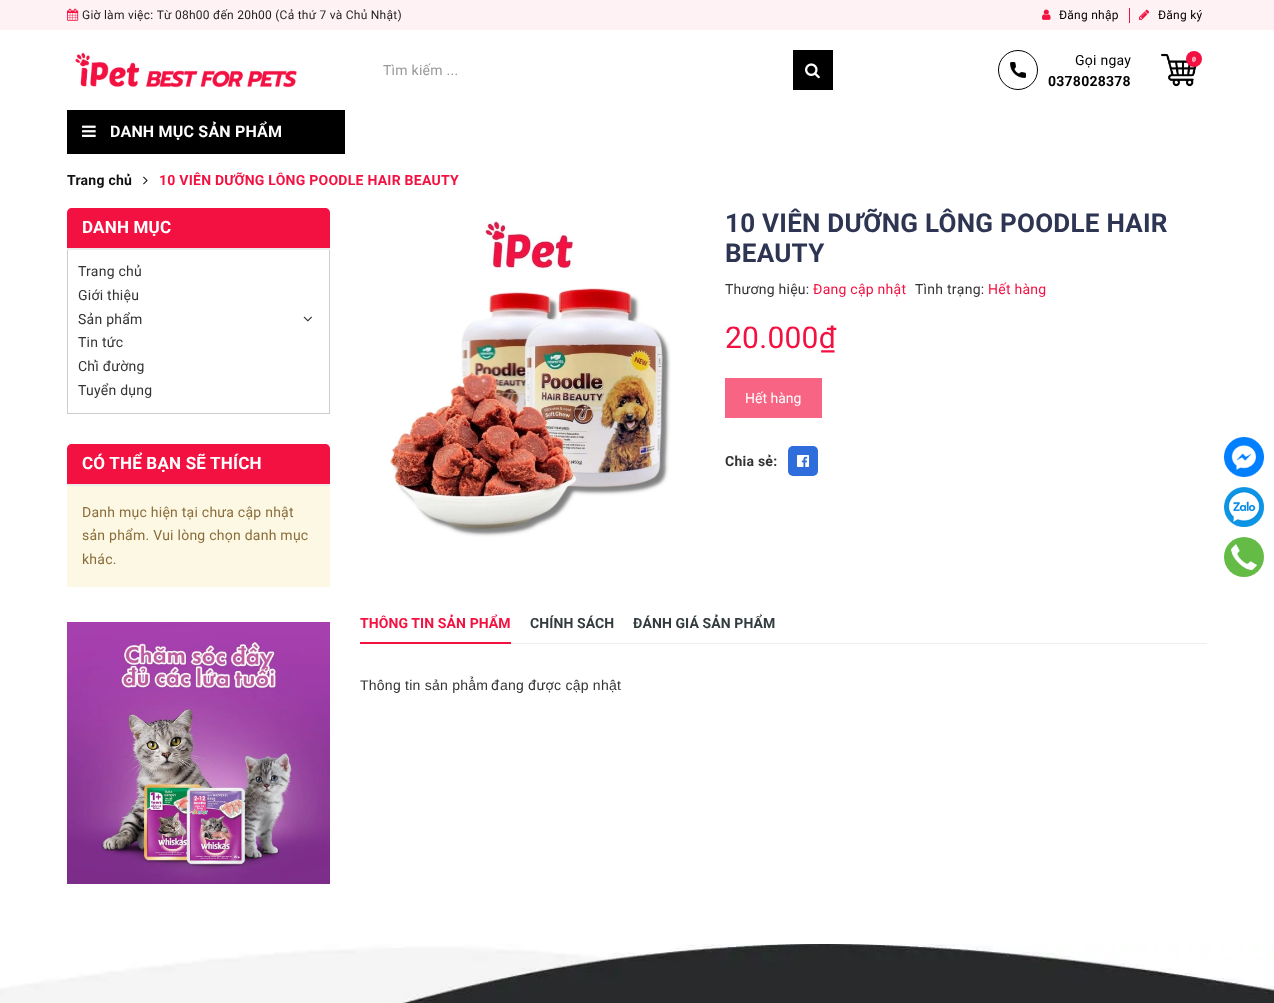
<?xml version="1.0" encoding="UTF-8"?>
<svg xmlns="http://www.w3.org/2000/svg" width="1274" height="1003">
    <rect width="100%" height="100%" fill="#FFFFFF"/>
    <rect x="0" y="0" width="1274" height="30" fill="#FFF2F5"/>
    <image x="67" y="8" width="12" height="13" href="img_01.png"/>
    <text x="82" y="19" font-family="Roboto" font-size="12" letter-spacing="0.25" fill="#1F1F1F">Giờ làm việc: Từ 08h00 đến 20h00 (Cả thứ 7 và Chủ Nhật)</text>
    <image x="1042" y="9" width="9" height="11" href="img_02.png"/>
    <text x="1059" y="19" font-family="Roboto" font-size="12" letter-spacing="0.25" fill="#000000">Đăng nhập</text>
    <rect x="1129" y="8" width="1" height="15" fill="#F31141"/>
    <image x="1139" y="9" width="11" height="11" href="img_03.png"/>
    <text x="1158" y="19" font-family="Roboto" font-size="12" letter-spacing="0.25" fill="#000000">Đăng ký</text>
    <image x="75" y="52" width="222" height="36" href="img_04.png"/>
    <text x="383" y="75" font-family="Roboto" font-size="14" letter-spacing="0.25" fill="#999999">Tìm kiếm ...</text>
    <rect x="793" y="50" width="40" height="40" fill="#000000"/>
    <image x="805" y="63" width="15" height="16" href="img_05.png"/>
    <circle cx="1018" cy="70" r="19.5" fill="none" stroke="#000000"/>
    <image x="1010" y="62" width="16" height="16" href="img_06.png"/>
    <text x="1075" y="65" font-family="Roboto" font-size="14" letter-spacing="0.25" fill="#000000">Gọi ngay</text>
    <text x="1048" y="86" font-family="Roboto" font-size="14" font-weight="700" letter-spacing="0.25" fill="#000000">0378028378</text>
    <image x="1161" y="53" width="36" height="34" href="img_07.png"/>
    <circle cx="1194" cy="59" r="8" fill="#F31141"/>
    <text x="1192" y="62" font-family="Liberation Serif" font-size="8" font-weight="700" letter-spacing="0.25" fill="#FFFFFF">0</text>
    <rect x="67" y="110" width="278" height="44" fill="#000000"/>
    <image x="82" y="125" width="14" height="12" href="img_08.png"/>
    <text x="110" y="137" font-family="Roboto" font-size="16" font-weight="700" letter-spacing="0.2" fill="#FFFFFF">DANH MỤC SẢN PHẨM</text>
    <text x="67" y="185" font-family="Roboto" font-size="14" font-weight="700" letter-spacing="0.25" fill="#111111">Trang chủ</text>
    <image x="143" y="176" width="5" height="9" href="img_09.png"/>
    <text x="159" y="185" font-family="Roboto" font-size="14" font-weight="700" letter-spacing="0.25" fill="#F31141">10 VIÊN DƯỠNG LÔNG POODLE HAIR BEAUTY</text>
    <path d="M 72 208 H 325 C 328 208 330 210 330 213 V 250 H 67 V 213 C 67 210 69 208 72 208 Z" fill="#F31141"/>
    <rect x="67" y="248" width="263" height="2" fill="#EBEBEB"/>
    <text x="82" y="233" font-family="Roboto" font-size="17" font-weight="700" letter-spacing="0.2" fill="#FFFFFF">DANH MỤC</text>
    <rect x="329" y="250" width="1" height="164" fill="#CDCDCD"/>
    <rect x="67" y="413" width="263" height="1" fill="#CDCDCD"/>
    <rect x="67" y="250" width="1" height="164" fill="#CDCDCD"/>
    <text font-family="Roboto" font-size="14" letter-spacing="0.25" fill="#333333">
        <tspan x="78" y="276">Trang chủ</tspan>
        <tspan x="78" y="300">Giới thiệu</tspan>
        <tspan x="78" y="324">Sản phẩm</tspan>
    </text>
    <image x="303" y="316" width="9" height="6" href="img_10.png"/>
    <text font-family="Roboto" font-size="14" letter-spacing="0.25" fill="#333333">
        <tspan x="78" y="347">Tin tức</tspan>
        <tspan x="78" y="371">Chỉ đường</tspan>
        <tspan x="78" y="395">Tuyển dụng</tspan>
    </text>
    <path d="M 72 444 H 325 C 328 444 330 446 330 449 V 486 H 67 V 449 C 67 446 69 444 72 444 Z" fill="#F31141"/>
    <rect x="67" y="484" width="263" height="2" fill="#EBEBEB"/>
    <text x="82" y="469" font-family="Roboto" font-size="17" font-weight="700" letter-spacing="0.2" fill="#FFFFFF">CÓ THỂ BẠN SẼ THÍCH</text>
    <rect x="67" y="486" width="263" height="101" fill="#FCF8E3"/>
    <text font-family="Roboto" font-size="14" letter-spacing="0.25" fill="#8A6D3B">
        <tspan x="82" y="517">Danh mục hiện tại chưa cập nhật</tspan>
        <tspan x="82" y="540">sản phẩm. Vui lòng chọn danh mục</tspan>
        <tspan x="82" y="564">khác.</tspan>
    </text>
    <image x="67" y="622" width="263" height="262" href="img_11.png"/>
    <image x="389" y="220" width="282" height="317" href="img_12.png"/>
    <text font-family="Roboto" font-size="26" font-weight="700" letter-spacing="0.25" fill="#2E3553">
        <tspan x="725" y="232">10 VIÊN DƯỠNG LÔNG POODLE HAIR</tspan>
        <tspan x="725" y="262">BEAUTY</tspan>
    </text>
    <text x="725" y="294" font-family="Roboto" font-size="14" letter-spacing="0.25" fill="#333333">Thương hiệu:</text>
    <text x="813" y="294" font-family="Roboto" font-size="14" letter-spacing="0.25" fill="#F31141">Đang cập nhật</text>
    <text x="915" y="294" font-family="Roboto" font-size="14" letter-spacing="0.25" fill="#333333">Tình trạng:</text>
    <text x="988" y="294" font-family="Roboto" font-size="14" letter-spacing="0.25" fill="#F31141">Hết hàng</text>
    <text x="725" y="348" font-family="Roboto" font-size="30" letter-spacing="0.25" fill="#F31141">20.000₫</text>
    <rect x="725" y="378" width="97" height="40" fill="#F76484"/>
    <text x="745" y="403" font-family="Roboto" font-size="14" fill="#FFFFFF">Hết hàng</text>
    <text x="725" y="466" font-family="Roboto" font-size="14" font-weight="700" letter-spacing="0.25" fill="#333333">Chia sẻ:</text>
    <rect x="788" y="446" width="30" height="30" rx="5" fill="#2F6CDC"/>
    <image x="797" y="455" width="12" height="12" href="img_13.png"/>
    <rect x="511" y="643" width="696" height="1" fill="#EEEEEE"/>
    <text x="360" y="628" font-family="Roboto" font-size="14" font-weight="700" letter-spacing="0.1" fill="#F31141">THÔNG TIN SẢN PHẨM</text>
    <rect x="360" y="642" width="151" height="2" fill="#F31141"/>
    <text x="530" y="628" font-family="Roboto" font-size="14" font-weight="700" letter-spacing="0.1" fill="#323C3F">CHÍNH SÁCH</text>
    <text x="633" y="628" font-family="Roboto" font-size="14" font-weight="700" letter-spacing="0.1" fill="#323C3F">ĐÁNH GIÁ SẢN PHẨM</text>
    <text x="360" y="690" font-family="Liberation Sans" font-size="14" letter-spacing="0.25" fill="#333333">Thông tin sản phẩm</text>
    <text x="491" y="690" font-family="Roboto" font-size="14" letter-spacing="0.25" fill="#333333">đ</text>
    <text x="500" y="690" font-family="Liberation Sans" font-size="14" letter-spacing="0.25" fill="#333333">ang</text>
    <text x="528" y="690" font-family="Roboto" font-size="14" letter-spacing="0.25" fill="#333333">đượ</text>
    <text x="554" y="690" font-family="Liberation Sans" font-size="14" letter-spacing="0.25" fill="#333333">c cập nhật</text>
    <image x="1224" y="437" width="40" height="40" href="img_14.png"/>
    <image x="1224" y="487" width="40" height="40" href="img_15.png"/>
    <circle cx="1244" cy="557" r="20" fill="#64BC46"/>
    <image x="1231" y="544" width="26" height="26" href="img_16.png"/>
    <image x="0" y="944" width="1274" height="59" href="img_17.png"/>
</svg>
